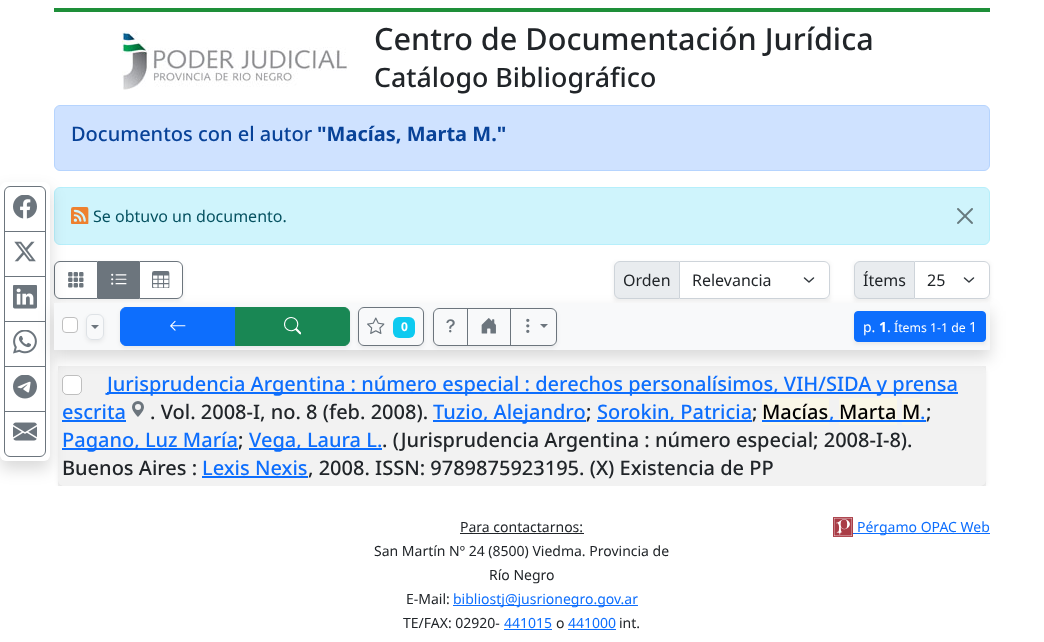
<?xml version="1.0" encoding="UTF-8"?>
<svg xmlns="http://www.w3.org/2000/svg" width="1044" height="642">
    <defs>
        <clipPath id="clip1"><path d="M 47 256 H 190 V 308 H 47 Z M 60 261 H 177 C 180.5 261 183 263.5 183 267 V 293 C 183 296.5 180.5 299 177 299 H 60 C 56.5 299 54 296.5 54 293 V 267 C 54 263.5 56.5 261 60 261 Z" clip-rule="evenodd"/></clipPath>
        <filter id="blur1" x="-50%" y="-200%" width="200%" height="500%"><feGaussianBlur stdDeviation="2"/></filter>
        <clipPath id="clip2"><rect x="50" y="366" width="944" height="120"/></clipPath>
        <clipPath id="clip3"><path d="M 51 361 H 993 V 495 H 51 Z M 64 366 H 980 C 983.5 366 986 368.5 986 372 V 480 C 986 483.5 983.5 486 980 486 H 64 C 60.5 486 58 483.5 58 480 V 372 C 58 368.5 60.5 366 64 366 Z" clip-rule="evenodd"/></clipPath>
        <filter id="blur2" x="-50%" y="-200%" width="200%" height="500%"><feGaussianBlur stdDeviation="8"/></filter>
        <clipPath id="clip4"><path d="M 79 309 H 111 V 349 H 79 Z M 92 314 H 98 C 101.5 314 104 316.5 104 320 V 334 C 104 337.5 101.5 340 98 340 H 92 C 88.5 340 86 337.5 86 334 V 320 C 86 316.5 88.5 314 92 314 Z" clip-rule="evenodd"/></clipPath>
        <clipPath id="clip5"><path d="M 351 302 H 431 V 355 H 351 Z M 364 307 H 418 C 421.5 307 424 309.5 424 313 V 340 C 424 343.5 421.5 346 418 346 H 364 C 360.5 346 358 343.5 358 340 V 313 C 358 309.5 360.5 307 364 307 Z" clip-rule="evenodd"/></clipPath>
        <clipPath id="clip6"><path d="M 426 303 H 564 V 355 H 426 Z M 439 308 H 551 C 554.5 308 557 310.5 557 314 V 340 C 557 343.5 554.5 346 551 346 H 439 C 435.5 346 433 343.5 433 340 V 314 C 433 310.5 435.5 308 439 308 Z" clip-rule="evenodd"/></clipPath>
    </defs>
    <rect width="100%" height="100%" fill="#FFFFFF"/>
    <rect x="54" y="8" width="936" height="4" fill="#1E8F39"/>
    <image x="122" y="31" width="227" height="59" href="img_01.png"/>
    <text x="374" y="50" font-family="Noto Sans" font-size="30.6" font-weight="500" fill="#212529">Centro de Documentación Jurídica</text>
    <text x="374" y="87" font-family="Noto Sans" font-size="26.75" font-weight="500" fill="#212529">Catálogo Bibliográfico</text>
    <rect x="54.5" y="105.5" width="935" height="65" rx="5.5" fill="#CFE2FF" stroke="#B6D4FE"/>
    <rect x="54.5" y="187.5" width="935" height="57" rx="5.5" fill="#CFF4FC" stroke="#B6EFFB"/>
    <image x="71" y="207" width="18" height="17" href="img_08.png"/>
    <g clip-path="url(#clip1)">
        <rect x="54" y="263" width="129" height="38" rx="6" fill="#000000" fill-opacity="0.07" filter="url(#blur1)"/>
    </g>
    <path d="M 60 261.5 H 97.5 V 298.5 H 60 C 57 298.5 54.5 296 54.5 293 V 267 C 54.5 264 57 261.5 60 261.5 Z" fill="none" stroke="#6C757D"/>
    <image x="68" y="272" width="16" height="16" href="img_10.png"/>
    <g clip-path="url(#clip2)">
        <g clip-path="url(#clip3)">
            <rect x="58" y="368" width="928" height="120" rx="6" fill="#000000" fill-opacity="0.07" filter="url(#blur1)"/>
        </g>
    </g>
    <rect x="58" y="366" width="928" height="120" fill="#000000" fill-opacity="0.05"/>
    <rect x="62" y="375" width="20" height="20" rx="5" fill="#FFFFFF"/>
    <rect x="62.5" y="375.5" width="19" height="19" rx="4.5" fill="none" stroke="#000000" stroke-opacity="0.25"/>
    <rect x="62" y="420" width="64" height="2" fill="#0D6EFD"/>
    <rect x="62" y="448" width="176" height="2" fill="#0D6EFD"/>
    <rect x="0" y="190" width="50" height="279" rx="6" fill="#000000" fill-opacity="0.15" filter="url(#blur2)"/>
    <rect x="0" y="182" width="50" height="279" rx="6" fill="#FFFFFF"/>
    <path d="M 10 186.5 H 40 C 43 186.5 45.5 189 45.5 192 V 231.5 H 4.5 V 192 C 4.5 189 7 186.5 10 186.5 Z" fill="none" stroke="#6C757D"/>
    <image x="13" y="195" width="24" height="24" href="img_02.png"/>
    <rect x="4.5" y="231.5" width="41" height="45" fill="none" stroke="#6C757D"/>
    <image x="14" y="241" width="22" height="21" href="img_03.png"/>
    <rect x="4.5" y="276.5" width="41" height="45" fill="none" stroke="#6C757D"/>
    <image x="13" y="285" width="24" height="24" href="img_04.png"/>
    <rect x="4.5" y="321.5" width="41" height="45" fill="none" stroke="#6C757D"/>
    <image x="13" y="330" width="24" height="24" href="img_05.png"/>
    <rect x="4.5" y="366.5" width="41" height="45" fill="none" stroke="#6C757D"/>
    <image x="13" y="375" width="24" height="24" href="img_06.png"/>
    <path d="M 4.5 411.5 H 45.5 V 451 C 45.5 454 43 456.5 40 456.5 H 10 C 7 456.5 4.5 454 4.5 451 Z" fill="none" stroke="#6C757D"/>
    <image x="13" y="422" width="24" height="19" href="img_07.png"/>
    <text x="71" y="141" font-family="Noto Sans" font-size="20" font-weight="500" fill="#084298">Documentos con el autor</text>
    <text x="317" y="141" font-family="Noto Sans" font-size="20" font-weight="700" fill="#084298">"Macías, Marta M."</text>
    <text x="93" y="222" font-family="Noto Sans" font-size="16" fill="#055160">Se obtuvo un documento.</text>
    <image x="957" y="208" width="16" height="16" href="img_09.png"/>
    <rect x="98" y="261" width="41" height="38" fill="#6C757D"/>
    <image x="111" y="273" width="16" height="12" href="img_11.png"/>
    <path d="M 139.5 261.5 H 177 C 180 261.5 182.5 264 182.5 267 V 293 C 182.5 296 180 298.5 177 298.5 H 139.5 Z" fill="none" stroke="#6C757D"/>
    <image x="152" y="271" width="18" height="17" href="img_12.png"/>
    <rect x="614" y="263" width="216" height="38" fill="#000000" fill-opacity="0.07" filter="url(#blur1)"/>
    <path d="M 620 261.5 H 679.5 V 298.5 H 620 C 617 298.5 614.5 296 614.5 293 V 267 C 614.5 264 617 261.5 620 261.5 Z" fill="#E9ECEF" stroke="#CED4DA"/>
    <text x="623" y="286" font-family="Noto Sans" font-size="16" fill="#212529">Orden</text>
    <path d="M 679 261 H 824 C 827.5 261 830 263.5 830 267 V 293 C 830 296.5 827.5 299 824 299 H 679 Z" fill="#FFFFFF"/>
    <path d="M 804.5 278 L 809 282 L 813.5 278" fill="none" stroke="#343A40" stroke-width="1.5" stroke-linecap="round" stroke-linejoin="round"/>
    <path d="M 679.5 261.5 H 824 C 827 261.5 829.5 264 829.5 267 V 293 C 829.5 296 827 298.5 824 298.5 H 679.5 Z" fill="none" stroke="#CED4DA"/>
    <text x="692" y="286" font-family="Noto Sans" font-size="16" fill="#212529">Relevancia</text>
    <rect x="854" y="263" width="136" height="38" fill="#000000" fill-opacity="0.07" filter="url(#blur1)"/>
    <path d="M 860 261.5 H 914.5 V 298.5 H 860 C 857 298.5 854.5 296 854.5 293 V 267 C 854.5 264 857 261.5 860 261.5 Z" fill="#E9ECEF" stroke="#CED4DA"/>
    <text x="863" y="286" font-family="Noto Sans" font-size="16" fill="#212529">Ítems</text>
    <path d="M 914 261 H 984 C 987.5 261 990 263.5 990 267 V 293 C 990 296.5 987.5 299 984 299 H 914 Z" fill="#FFFFFF"/>
    <path d="M 964.5 278 L 969 282 L 973.5 278" fill="none" stroke="#343A40" stroke-width="1.5" stroke-linecap="round" stroke-linejoin="round"/>
    <path d="M 914.5 261.5 H 984 C 987 261.5 989.5 264 989.5 267 V 293 C 989.5 296 987 298.5 984 298.5 H 914.5 Z" fill="none" stroke="#CED4DA"/>
    <text x="927" y="286" font-family="Noto Sans" font-size="16" fill="#212529">25</text>
    <rect x="54" y="311" width="936" height="47" fill="#000000" fill-opacity="0.15" filter="url(#blur2)"/>
    <rect x="54" y="303" width="936" height="47" fill="#F8F9FA"/>
    <rect x="62.5" y="317.5" width="15" height="15" rx="3.5" fill="#FFFFFF" stroke="#BFBFBF"/>
    <g clip-path="url(#clip4)">
        <rect x="86" y="316" width="18" height="26" rx="6" fill="#000000" fill-opacity="0.07" filter="url(#blur1)"/>
    </g>
    <rect x="86.5" y="314.5" width="17" height="25" rx="5.5" fill="none" stroke="#DEE2E6"/>
    <path d="M 91 325 H 99 L 95 329 Z" fill="#6C757D"/>
    <rect x="120" y="309" width="230" height="39" rx="6" fill="#000000" fill-opacity="0.07" filter="url(#blur1)"/>
    <path d="M 126 307.5 H 235.5 V 345.5 H 126 C 123 345.5 120.5 343 120.5 340 V 313 C 120.5 310 123 307.5 126 307.5 Z" fill="#0D6EFD" stroke="#0D6EFD"/>
    <image x="170" y="320" width="16" height="11" href="img_13.png"/>
    <path d="M 235.5 307.5 H 344 C 347 307.5 349.5 310 349.5 313 V 340 C 349.5 343 347 345.5 344 345.5 H 235.5 Z" fill="#198754" stroke="#198754"/>
    <image x="284" y="317" width="17" height="18" href="img_14.png"/>
    <g clip-path="url(#clip5)">
        <rect x="358" y="309" width="66" height="39" rx="6" fill="#000000" fill-opacity="0.07" filter="url(#blur1)"/>
    </g>
    <rect x="358.5" y="307.5" width="65" height="38" rx="5.5" fill="none" stroke="#6C757D"/>
    <image x="367" y="317" width="18" height="17" href="img_15.png"/>
    <rect x="393" y="317" width="22" height="21" rx="6" fill="#0DCAF0"/>
    <text x="401" y="331" font-family="Noto Sans" font-size="12" font-weight="700" fill="#FFFFFF">0</text>
    <g clip-path="url(#clip6)">
        <rect x="433" y="310" width="124" height="38" rx="6" fill="#000000" fill-opacity="0.07" filter="url(#blur1)"/>
    </g>
    <path d="M 439 308.5 H 467.5 V 345.5 H 439 C 436 345.5 433.5 343 433.5 340 V 314 C 433.5 311 436 308.5 439 308.5 Z" fill="none" stroke="#6C757D"/>
    <image x="446" y="319" width="9" height="14" href="img_16.png"/>
    <rect x="467.5" y="308.5" width="43" height="37" fill="none" stroke="#6C757D"/>
    <image x="481" y="318" width="15" height="16" href="img_17.png"/>
    <path d="M 510.5 308.5 H 551 C 554 308.5 556.5 311 556.5 314 V 340 C 556.5 343 554 345.5 551 345.5 H 510.5 Z" fill="none" stroke="#6C757D"/>
    <image x="526" y="318" width="4" height="15" href="img_18.png"/>
    <path d="M 540 324 H 548 L 544 328 Z" fill="#6C757D"/>
    <rect x="854" y="313" width="132" height="31" fill="#000000" fill-opacity="0.07" filter="url(#blur1)"/>
    <rect x="854.5" y="311.5" width="131" height="30" rx="3.5" fill="#0D6EFD" stroke="#0D6EFD"/>
    <text x="863" y="332" font-family="Noto Sans" font-size="14" fill="#FFFFFF">p.</text>
    <text x="879" y="332" font-family="Noto Sans" font-size="14" font-weight="700" fill="#FFFFFF">1</text>
    <text x="887" y="332" font-family="Noto Sans" font-size="14" fill="#FFFFFF">.</text>
    <text x="894" y="332" font-family="Noto Sans" font-size="12.25" fill="#FFFFFF">Ítems 1-1 de</text>
    <text x="969" y="332" font-family="Noto Sans" font-size="14" fill="#FFFFFF">1</text>
    <rect x="107" y="392" width="851" height="2" fill="#0D6EFD"/>
    <text x="107" y="391" font-family="Noto Sans" font-size="20" font-weight="500" fill="#0D6EFD">Jurisprudencia Argentina : número especial : derechos personalísimos, VIH/SIDA y prensa</text>
    <text x="62" y="419" font-family="Noto Sans" font-size="20" font-weight="500" fill="#0D6EFD">escrita</text>
    <image x="132" y="401" width="12" height="16" href="img_19.png"/>
    <text x="150" y="419" font-family="Noto Sans" font-size="20" font-weight="500" fill="#212529">. Vol. 2008-I, no. 8 (feb. 2008).</text>
    <rect x="433" y="420" width="153" height="2" fill="#0D6EFD"/>
    <text x="433" y="419" font-family="Noto Sans" font-size="20" font-weight="500" fill="#0D6EFD">Tuzio, Alejandro</text>
    <text x="586" y="419" font-family="Noto Sans" font-size="20" font-weight="500" fill="#212529">;</text>
    <rect x="597" y="420" width="155" height="2" fill="#0D6EFD"/>
    <text x="597" y="419" font-family="Noto Sans" font-size="20" font-weight="500" fill="#0D6EFD">Sorokin, Patricia</text>
    <text x="752" y="419" font-family="Noto Sans" font-size="20" font-weight="500" fill="#212529">;</text>
    <rect x="762" y="398" width="67" height="27" fill="#FAF7E7"/>
    <text x="762" y="419" font-family="Noto Sans" font-size="20" font-weight="500" fill="#000000">Macías</text>
    <rect x="762" y="420" width="77" height="2" fill="#0D6EFD"/>
    <text x="829" y="419" font-family="Noto Sans" font-size="20" font-weight="500" fill="#0D6EFD">,</text>
    <rect x="839" y="398" width="58" height="27" fill="#FAF7E7"/>
    <rect x="839" y="420" width="63" height="2" fill="#0D6EFD"/>
    <text x="839" y="419" font-family="Noto Sans" font-size="20" font-weight="500" fill="#000000">Marta</text>
    <rect x="902" y="398" width="18" height="27" fill="#FAF7E7"/>
    <text x="902" y="419" font-family="Noto Sans" font-size="20" font-weight="500" fill="#000000">M</text>
    <text x="920" y="419" font-family="Noto Sans" font-size="20" font-weight="500" fill="#0D6EFD">.</text>
    <rect x="902" y="420" width="24" height="2" fill="#0D6EFD"/>
    <text x="926" y="419" font-family="Noto Sans" font-size="20" font-weight="500" fill="#212529">;</text>
    <text x="62" y="447" font-family="Noto Sans" font-size="20" font-weight="500" fill="#0D6EFD">Pagano, Luz María</text>
    <text x="238" y="447" font-family="Noto Sans" font-size="20" font-weight="500" fill="#212529">;</text>
    <rect x="249" y="448" width="133" height="2" fill="#0D6EFD"/>
    <text x="249" y="447" font-family="Noto Sans" font-size="20" font-weight="500" fill="#0D6EFD">Vega, Laura L.</text>
    <text x="382" y="447" font-family="Noto Sans" font-size="20" font-weight="500" fill="#212529">. (Jurisprudencia Argentina : número especial; 2008-I-8).</text>
    <text x="62" y="475" font-family="Noto Sans" font-size="20" font-weight="500" fill="#212529">Buenos Aires :</text>
    <text x="202" y="475" font-family="Noto Sans" font-size="20" font-weight="500" fill="#0D6EFD">Lexis Nexis</text>
    <rect x="202" y="476" width="106" height="2" fill="#0D6EFD"/>
    <text x="308" y="475" font-family="Noto Sans" font-size="20" font-weight="500" fill="#212529">, 2008. ISSN: 9789875923195. (X) Existencia de PP</text>
    <text x="460" y="532" font-family="Noto Sans" font-size="14" fill="#212529">Para contactarnos:</text>
    <rect x="460" y="533" width="124" height="1" fill="#212529"/>
    <text x="374" y="556" font-family="Noto Sans" font-size="14" fill="#212529">San Martín Nº 24 (8500) Viedma. Provincia de</text>
    <text x="489" y="580" font-family="Noto Sans" font-size="14" fill="#212529">Río Negro</text>
    <text x="406" y="604" font-family="Noto Sans" font-size="14" fill="#212529">E-Mail:</text>
    <rect x="453" y="605" width="185" height="1" fill="#0D6EFD"/>
    <text x="453" y="604" font-family="Noto Sans" font-size="14" fill="#0D6EFD">bibliostj@jusrionegro.gov.ar</text>
    <text x="403" y="628" font-family="Noto Sans" font-size="14" fill="#212529">TE/FAX: 02920-</text>
    <text x="504" y="628" font-family="Noto Sans" font-size="14" fill="#0D6EFD">441015</text>
    <rect x="504" y="629" width="48" height="1" fill="#0D6EFD"/>
    <text x="556" y="628" font-family="Noto Sans" font-size="14" fill="#212529">o</text>
    <text x="568" y="628" font-family="Noto Sans" font-size="14" fill="#0D6EFD">441000</text>
    <rect x="568" y="629" width="48" height="1" fill="#0D6EFD"/>
    <text x="619" y="628" font-family="Noto Sans" font-size="14" fill="#212529">int.</text>
    <image x="833" y="517" width="20" height="20" href="img_20.png"/>
    <rect x="853" y="533" width="137" height="1" fill="#0D6EFD"/>
    <text x="857" y="532" font-family="Noto Sans" font-size="14" fill="#0D6EFD">Pérgamo OPAC Web</text>
</svg>
